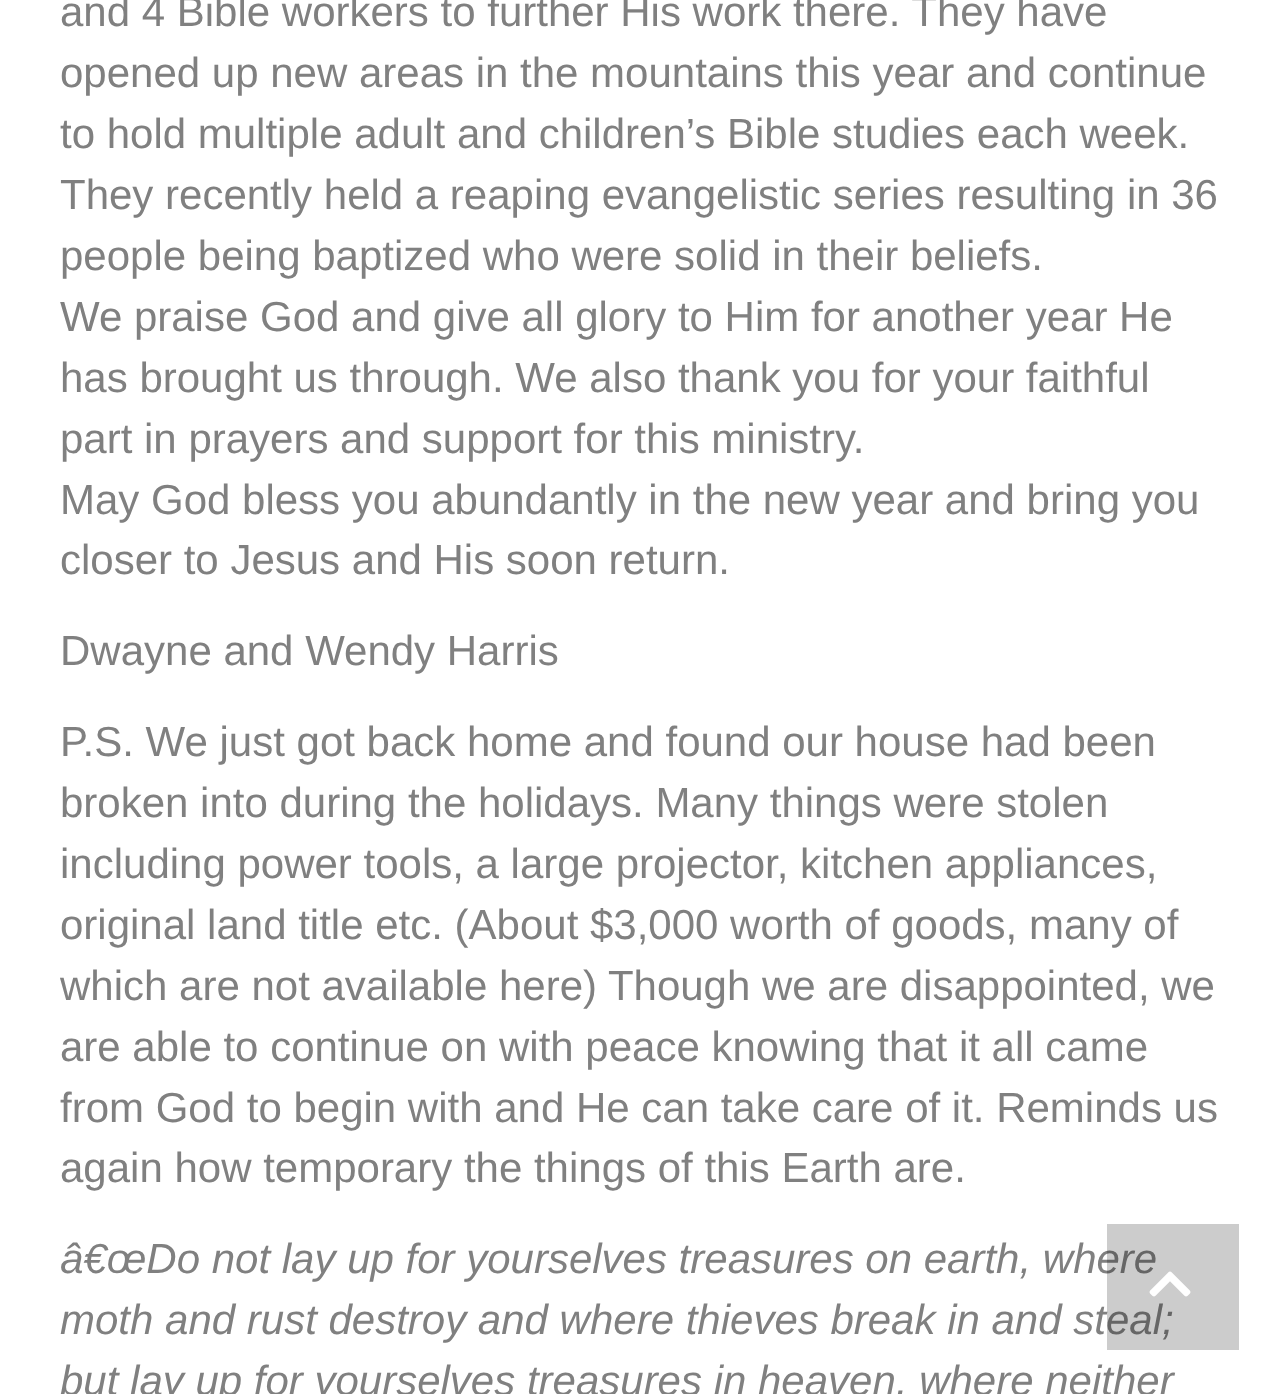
<?xml version="1.0" encoding="UTF-8"?>
<svg xmlns="http://www.w3.org/2000/svg" width="1283" height="1394">
    <rect width="100%" height="100%" fill="#FFFFFF"/>
    <text font-family="Liberation Sans" font-size="42" fill="#808080">
        <tspan x="60" y="26">and 4 Bible workers to further His work there. They have</tspan>
        <tspan x="60" y="87">opened up new areas in the mountains this year and continue</tspan>
        <tspan x="60" y="148">to hold multiple adult and children’s Bible studies each week.</tspan>
        <tspan x="60" y="209">They recently held a reaping evangelistic series resulting in 36</tspan>
        <tspan x="60" y="270">people being baptized who were solid in their beliefs.</tspan>
        <tspan x="60" y="331">We praise God and give all glory to Him for another year He</tspan>
        <tspan x="60" y="392">has brought us through. We also thank you for your faithful</tspan>
        <tspan x="60" y="453">part in prayers and support for this ministry.</tspan>
        <tspan x="60" y="514">May God bless you abundantly in the new year and bring you</tspan>
        <tspan x="60" y="574">closer to Jesus and His soon return.</tspan>
    </text>
    <text x="60" y="665" font-family="Liberation Sans" font-size="42" fill="#808080">Dwayne and Wendy Harris</text>
    <text font-family="Liberation Sans" font-size="42" fill="#808080">
        <tspan x="60" y="756">P.S. We just got back home and found our house had been</tspan>
        <tspan x="60" y="817">broken into during the holidays. Many things were stolen</tspan>
        <tspan x="60" y="878">including power tools, a large projector, kitchen appliances,</tspan>
        <tspan x="60" y="939">original land title etc. (About $3,000 worth of goods, many of</tspan>
        <tspan x="60" y="1000">which are not available here) Though we are disappointed, we</tspan>
        <tspan x="60" y="1061">are able to continue on with peace knowing that it all came</tspan>
        <tspan x="60" y="1122">from God to begin with and He can take care of it. Reminds us</tspan>
        <tspan x="60" y="1182">again how temporary the things of this Earth are.</tspan>
    </text>
    <text font-family="Liberation Sans" font-size="42" font-style="italic" fill="#808080">
        <tspan x="60" y="1273">â€œDo not lay up for yourselves treasures on earth, where</tspan>
        <tspan x="60" y="1334">moth and rust destroy and where thieves break in and steal;</tspan>
        <tspan x="60" y="1395">but lay up for yourselves treasures in heaven, where neither</tspan>
    </text>
    <rect x="1107" y="1224" width="132" height="126" fill="#000000" fill-opacity="0.2"/>
    <image x="1149" y="1271" width="42" height="26" href="img_01.png"/>
</svg>
